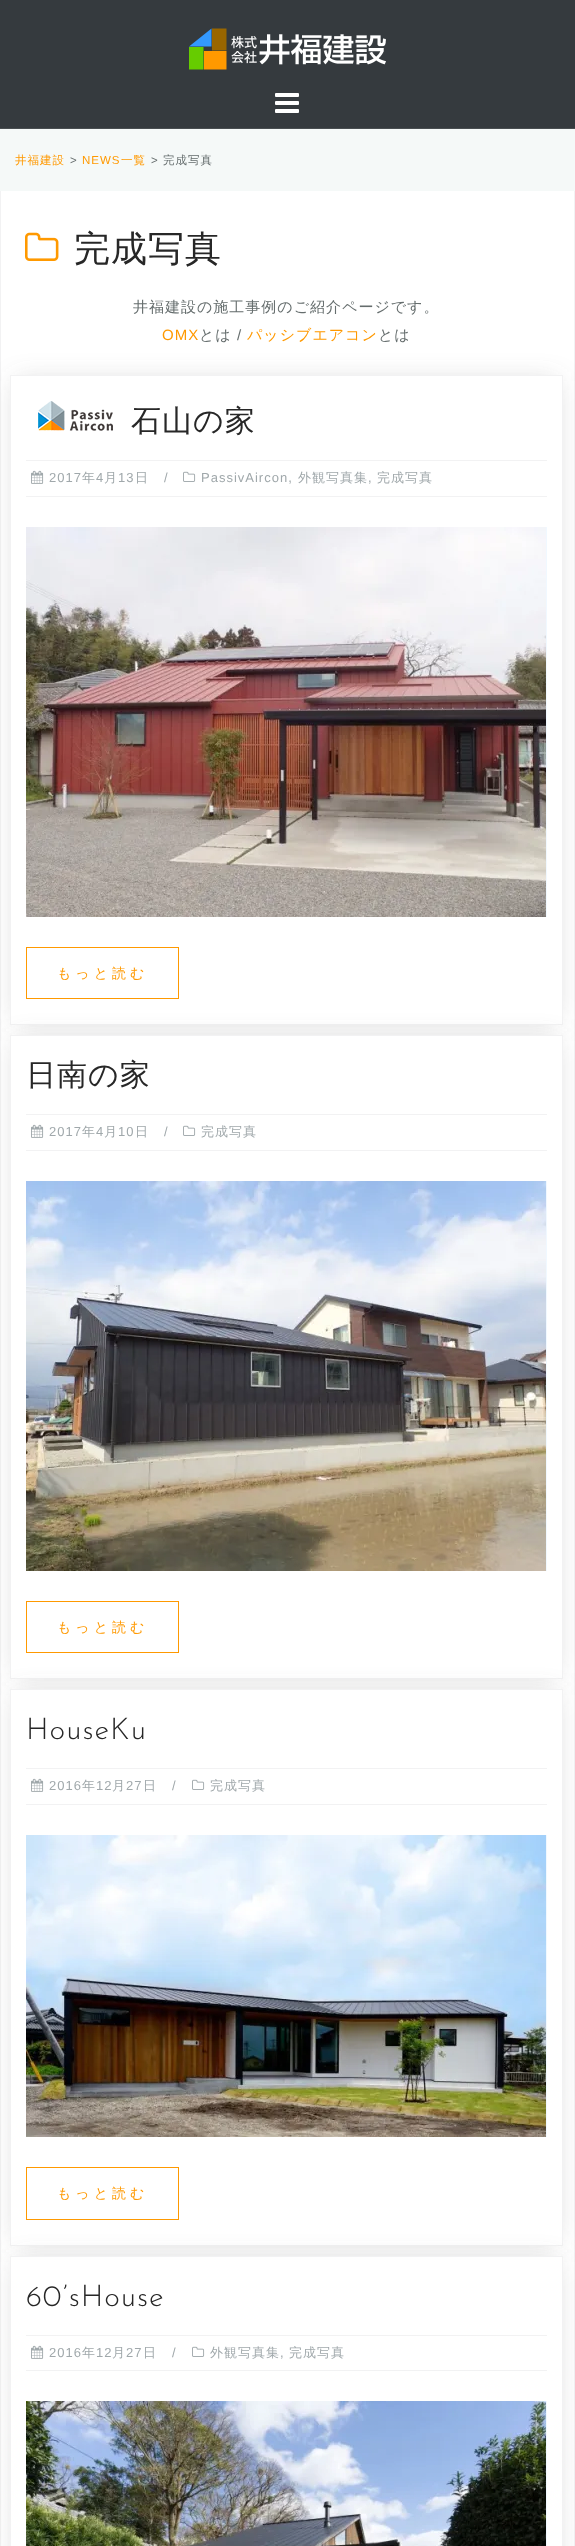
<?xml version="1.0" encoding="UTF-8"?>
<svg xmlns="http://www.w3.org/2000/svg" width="575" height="2546">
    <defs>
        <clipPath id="clip1"><path d="M 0 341 H 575 V 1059 H 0 Z M 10 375 H 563 V 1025 H 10 Z" clip-rule="evenodd"/></clipPath>
        <filter id="blur1" x="-50%" y="-200%" width="200%" height="500%"><feGaussianBlur stdDeviation="13"/></filter>
    </defs>
    <rect width="100%" height="100%" fill="#F5F9F8"/>
    <rect x="0" y="0" width="575" height="128" fill="#353A3E"/>
    <rect x="0" y="128" width="575" height="1" fill="#494E51"/>
    <image x="189" y="28" width="197" height="42" href="img_01.png"/>
    <image x="275" y="93" width="24" height="20" href="img_02.png"/>
    <text x="15" y="164" font-family="WenQuanYi Zen Hei" font-size="11.5" font-weight="500" letter-spacing="1" fill="#FF9900">井福建設</text>
    <text x="70" y="164" font-family="Liberation Sans" font-size="11.5" letter-spacing="1" fill="#656D6D">&gt;</text>
    <text x="82" y="164" font-family="Liberation Sans" font-size="11.5" letter-spacing="1" fill="#FF9900">NEWS</text>
    <text x="121" y="164" font-family="WenQuanYi Zen Hei" font-size="11.5" font-weight="500" letter-spacing="1" fill="#FF9900">一覧</text>
    <text x="151" y="164" font-family="Liberation Sans" font-size="11.5" letter-spacing="1" fill="#656D6D">&gt;</text>
    <text x="163" y="164" font-family="WenQuanYi Zen Hei" font-size="11.5" font-weight="500" letter-spacing="1" fill="#656D6D">完成写真</text>
    <rect x="1" y="191" width="573" height="2355" fill="#FFFFFF"/>
    <rect x="574" y="191" width="1" height="2355" fill="#F2F2F3"/>
    <rect x="0" y="191" width="1" height="2355" fill="#F2F2F3"/>
    <image x="25" y="232" width="34" height="29" href="img_03.png"/>
    <text x="74" y="261" font-family="WenQuanYi Zen Hei" font-size="36" font-weight="500" letter-spacing="1" fill="#272727">完成写真</text>
    <text x="133" y="312" font-family="WenQuanYi Zen Hei" font-size="15" font-weight="500" letter-spacing="1" fill="#656D6D">井福建設の施工事例のご紹介ページです。</text>
    <text x="162" y="340" font-family="Liberation Sans" font-size="15" letter-spacing="1" fill="#FF9900">OMX</text>
    <text x="199" y="340" font-family="WenQuanYi Zen Hei" font-size="15" font-weight="500" letter-spacing="1" fill="#656D6D">とは</text>
    <text x="237" y="340" font-family="Liberation Sans" font-size="15" letter-spacing="1" fill="#656D6D">/</text>
    <text x="247" y="340" font-family="WenQuanYi Zen Hei" font-size="15" font-weight="500" letter-spacing="1" fill="#FF9900">パッシブエアコン</text>
    <text x="378" y="340" font-family="WenQuanYi Zen Hei" font-size="15" font-weight="500" letter-spacing="1" fill="#656D6D">とは</text>
    <g clip-path="url(#clip1)">
        <rect x="16" y="381" width="541" height="638" fill="#747474" fill-opacity="0.28" filter="url(#blur1)"/>
    </g>
    <rect x="10.5" y="375.5" width="552" height="649" fill="none" stroke="#F2F2F3"/>
    <image x="38" y="401" width="75" height="30" href="img_04.png"/>
    <text x="131" y="431" font-family="WenQuanYi Zen Hei" font-size="30" font-weight="500" letter-spacing="1" fill="#272727">石山の家</text>
    <rect x="26" y="460" width="521" height="1" fill="#F2F2F3"/>
    <rect x="26" y="496" width="521" height="1" fill="#F2F2F3"/>
    <image x="31" y="470" width="13" height="14" href="img_05.png"/>
    <text x="49" y="482" font-family="Liberation Sans" font-size="13" letter-spacing="1" fill="#A0A8AB">2017</text>
    <text x="82" y="482" font-family="WenQuanYi Zen Hei" font-size="13" font-weight="500" letter-spacing="1" fill="#A0A8AB">年</text>
    <text x="96" y="482" font-family="Liberation Sans" font-size="13" letter-spacing="1" fill="#A0A8AB">4</text>
    <text x="104" y="482" font-family="WenQuanYi Zen Hei" font-size="13" font-weight="500" letter-spacing="1" fill="#A0A8AB">月</text>
    <text x="118" y="482" font-family="Liberation Sans" font-size="13" letter-spacing="1" fill="#A0A8AB">13</text>
    <text x="135" y="482" font-family="WenQuanYi Zen Hei" font-size="13" font-weight="500" letter-spacing="1" fill="#A0A8AB">日</text>
    <text x="164" y="482" font-family="Liberation Sans" font-size="13" letter-spacing="1" fill="#A0A8AB">/</text>
    <image x="183" y="471" width="13" height="11" href="img_06.png"/>
    <text x="201" y="482" font-family="Liberation Sans" font-size="13" letter-spacing="1" fill="#A0A8AB">PassivAircon,</text>
    <text x="298" y="482" font-family="WenQuanYi Zen Hei" font-size="13" font-weight="500" letter-spacing="1" fill="#A0A8AB">外観写真集</text>
    <text x="368" y="482" font-family="Liberation Sans" font-size="13" letter-spacing="1" fill="#A0A8AB">,</text>
    <text x="377" y="482" font-family="WenQuanYi Zen Hei" font-size="13" font-weight="500" letter-spacing="1" fill="#A0A8AB">完成写真</text>
    <rect x="546" y="527" width="1" height="390" fill="#F0F8FF"/>
    <image x="26" y="527" width="520" height="390" href="img_07.png"/>
    <rect x="26.5" y="947.5" width="152" height="51" fill="none" stroke="#FF9900"/>
    <text x="57" y="978" font-family="WenQuanYi Zen Hei" font-size="14" font-weight="500" letter-spacing="4" fill="#FF9900">もっと読む</text>
    <rect x="16" y="1041" width="541" height="632" fill="#747474" fill-opacity="0.28" filter="url(#blur1)"/>
    <rect x="10.5" y="1035.5" width="552" height="643" fill="#FFFFFF" stroke="#F2F2F3"/>
    <text x="26" y="1085" font-family="WenQuanYi Zen Hei" font-size="30" font-weight="500" letter-spacing="1" fill="#272727">日南の家</text>
    <rect x="26" y="1114" width="521" height="1" fill="#F2F2F3"/>
    <rect x="26" y="1150" width="521" height="1" fill="#F2F2F3"/>
    <image x="31" y="1124" width="13" height="14" href="img_05.png"/>
    <text x="49" y="1136" font-family="Liberation Sans" font-size="13" letter-spacing="1" fill="#A0A8AB">2017</text>
    <text x="82" y="1136" font-family="WenQuanYi Zen Hei" font-size="13" font-weight="500" letter-spacing="1" fill="#A0A8AB">年</text>
    <text x="96" y="1136" font-family="Liberation Sans" font-size="13" letter-spacing="1" fill="#A0A8AB">4</text>
    <text x="104" y="1136" font-family="WenQuanYi Zen Hei" font-size="13" font-weight="500" letter-spacing="1" fill="#A0A8AB">月</text>
    <text x="118" y="1136" font-family="Liberation Sans" font-size="13" letter-spacing="1" fill="#A0A8AB">10</text>
    <text x="135" y="1136" font-family="WenQuanYi Zen Hei" font-size="13" font-weight="500" letter-spacing="1" fill="#A0A8AB">日</text>
    <text x="164" y="1136" font-family="Liberation Sans" font-size="13" letter-spacing="1" fill="#A0A8AB">/</text>
    <image x="183" y="1125" width="13" height="11" href="img_06.png"/>
    <text x="201" y="1136" font-family="WenQuanYi Zen Hei" font-size="13" font-weight="500" letter-spacing="1" fill="#A0A8AB">完成写真</text>
    <rect x="546" y="1181" width="1" height="390" fill="#F0F8FF"/>
    <image x="26" y="1181" width="520" height="390" href="img_08.png"/>
    <rect x="26.5" y="1601.5" width="152" height="51" fill="none" stroke="#FF9900"/>
    <text x="57" y="1632" font-family="WenQuanYi Zen Hei" font-size="14" font-weight="500" letter-spacing="4" fill="#FF9900">もっと読む</text>
    <rect x="16" y="1695" width="541" height="545" fill="#747474" fill-opacity="0.28" filter="url(#blur1)"/>
    <rect x="10.5" y="1689.5" width="552" height="556" fill="#FFFFFF" stroke="#F2F2F3"/>
    <text x="26" y="1739" font-family="Josefin Sans" font-size="30" font-weight="100" letter-spacing="1" fill="#272727">HouseKu</text>
    <rect x="26" y="1768" width="521" height="1" fill="#F2F2F3"/>
    <rect x="26" y="1804" width="521" height="1" fill="#F2F2F3"/>
    <image x="31" y="1778" width="13" height="14" href="img_05.png"/>
    <text x="49" y="1790" font-family="Liberation Sans" font-size="13" letter-spacing="1" fill="#A0A8AB">2016</text>
    <text x="82" y="1790" font-family="WenQuanYi Zen Hei" font-size="13" font-weight="500" letter-spacing="1" fill="#A0A8AB">年</text>
    <text x="96" y="1790" font-family="Liberation Sans" font-size="13" letter-spacing="1" fill="#A0A8AB">12</text>
    <text x="112" y="1790" font-family="WenQuanYi Zen Hei" font-size="13" font-weight="500" letter-spacing="1" fill="#A0A8AB">月</text>
    <text x="126" y="1790" font-family="Liberation Sans" font-size="13" letter-spacing="1" fill="#A0A8AB">27</text>
    <text x="143" y="1790" font-family="WenQuanYi Zen Hei" font-size="13" font-weight="500" letter-spacing="1" fill="#A0A8AB">日</text>
    <text x="172" y="1790" font-family="Liberation Sans" font-size="13" letter-spacing="1" fill="#A0A8AB">/</text>
    <image x="192" y="1779" width="13" height="11" href="img_06.png"/>
    <text x="210" y="1790" font-family="WenQuanYi Zen Hei" font-size="13" font-weight="500" letter-spacing="1" fill="#A0A8AB">完成写真</text>
    <rect x="546" y="1835" width="1" height="302" fill="#F0F8FF"/>
    <image x="26" y="1835" width="520" height="302" href="img_09.png"/>
    <rect x="26.5" y="2167.5" width="152" height="52" fill="none" stroke="#FF9900"/>
    <text x="57" y="2198" font-family="WenQuanYi Zen Hei" font-size="14" font-weight="500" letter-spacing="4" fill="#FF9900">もっと読む</text>
    <rect x="16" y="2262" width="541" height="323" fill="#747474" fill-opacity="0.28" filter="url(#blur1)"/>
    <rect x="10.5" y="2256.5" width="552" height="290" fill="#FFFFFF" stroke="#F2F2F3"/>
    <text x="26" y="2306" font-family="Josefin Sans" font-size="30" font-weight="100" letter-spacing="1" fill="#272727">60’sHouse</text>
    <rect x="26" y="2335" width="521" height="1" fill="#F2F2F3"/>
    <rect x="26" y="2370" width="521" height="1" fill="#F2F2F3"/>
    <image x="31" y="2345" width="13" height="14" href="img_05.png"/>
    <text x="49" y="2357" font-family="Liberation Sans" font-size="13" letter-spacing="1" fill="#A0A8AB">2016</text>
    <text x="82" y="2357" font-family="WenQuanYi Zen Hei" font-size="13" font-weight="500" letter-spacing="1" fill="#A0A8AB">年</text>
    <text x="96" y="2357" font-family="Liberation Sans" font-size="13" letter-spacing="1" fill="#A0A8AB">12</text>
    <text x="112" y="2357" font-family="WenQuanYi Zen Hei" font-size="13" font-weight="500" letter-spacing="1" fill="#A0A8AB">月</text>
    <text x="126" y="2357" font-family="Liberation Sans" font-size="13" letter-spacing="1" fill="#A0A8AB">27</text>
    <text x="143" y="2357" font-family="WenQuanYi Zen Hei" font-size="13" font-weight="500" letter-spacing="1" fill="#A0A8AB">日</text>
    <text x="172" y="2357" font-family="Liberation Sans" font-size="13" letter-spacing="1" fill="#A0A8AB">/</text>
    <image x="192" y="2346" width="13" height="11" href="img_06.png"/>
    <text x="210" y="2357" font-family="WenQuanYi Zen Hei" font-size="13" font-weight="500" letter-spacing="1" fill="#A0A8AB">外観写真集</text>
    <text x="280" y="2357" font-family="Liberation Sans" font-size="13" letter-spacing="1" fill="#A0A8AB">,</text>
    <text x="289" y="2357" font-family="WenQuanYi Zen Hei" font-size="13" font-weight="500" letter-spacing="1" fill="#A0A8AB">完成写真</text>
    <rect x="546" y="2401" width="1" height="145" fill="#F0F8FF"/>
    <image x="26" y="2401" width="520" height="145" href="img_10.png"/>
</svg>
